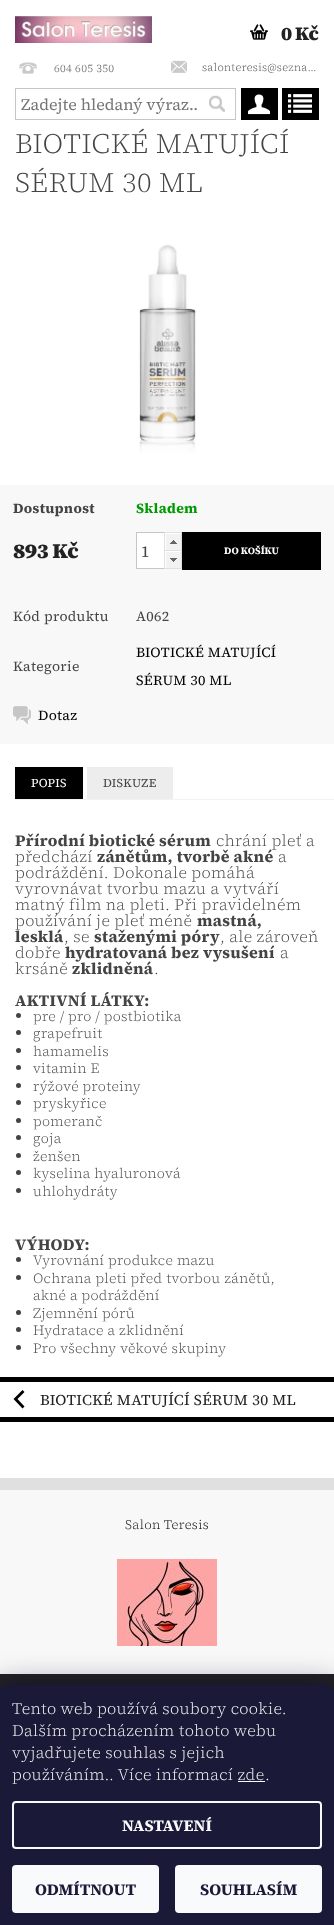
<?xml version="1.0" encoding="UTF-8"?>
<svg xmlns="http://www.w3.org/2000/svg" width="334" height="1925">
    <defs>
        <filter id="blur1" x="-50%" y="-200%" width="200%" height="500%"><feGaussianBlur stdDeviation="15"/></filter>
    </defs>
    <rect width="100%" height="100%" fill="#FFFFFF"/>
    <image x="15" y="16" width="137" height="27" href="img_01.png"/>
    <image x="250" y="24" width="18" height="16" href="img_02.png"/>
    <text x="281" y="40" font-family="'Source Serif 4'" font-size="19" font-weight="900" letter-spacing="-0.5" fill="#222222">0 Kč</text>
    <rect x="241" y="88" width="37" height="32" fill="#000000"/>
    <image x="248" y="94" width="22" height="21" href="img_03.png"/>
    <image x="19" y="62" width="18" height="12" href="img_04.png"/>
    <text x="54" y="72" font-family="'Source Serif 4'" font-size="11" font-weight="300" letter-spacing="0.3" fill="#444444">604 605 350</text>
    <image x="171" y="60" width="16" height="13" href="img_05.png"/>
    <text x="202" y="71" font-family="'Source Serif 4'" font-size="11" font-weight="300" letter-spacing="0.3" fill="#444444">salonteresis@sezna…</text>
    <rect x="15.5" y="88.5" width="220" height="31" fill="none" stroke="#C6C6C6"/>
    <text x="21" y="110" font-family="'Source Serif 4'" font-size="16.1" fill="#757575">Zadejte hledaný výraz..</text>
    <image x="209" y="95" width="16" height="17" href="img_06.png"/>
    <rect x="282" y="88" width="37" height="32" fill="#000000"/>
    <image x="288" y="94" width="24" height="19" href="img_07.png"/>
    <text font-family="'Source Serif 4'" font-size="28" font-weight="300" letter-spacing="0.3" fill="#444444">
        <tspan x="15" y="153">BIOTICKÉ MATUJÍCÍ</tspan>
        <tspan x="15" y="192">SÉRUM 30 ML</tspan>
    </text>
    <image x="139" y="244" width="57" height="209" href="img_08.png"/>
    <rect x="0" y="485" width="334" height="259" fill="#F8F8F8"/>
    <text x="13" y="513" font-family="'Source Serif 4'" font-size="14" font-weight="700" letter-spacing="0.3" fill="#444444">Dostupnost</text>
    <text x="136" y="513" font-family="'Source Serif 4'" font-size="14" font-weight="700" letter-spacing="0.3" fill="#009901">Skladem</text>
    <text x="13" y="558" font-family="'Source Serif 4'" font-size="21" font-weight="900" letter-spacing="-0.5" fill="#222222">893 Kč</text>
    <rect x="136.5" y="532.5" width="45" height="36" fill="#FFFFFF" stroke="#C6C6C6"/>
    <image x="164" y="532" width="18" height="18" href="img_09.png"/>
    <text x="141" y="557" font-family="'Source Serif 4'" font-size="16.1" fill="#444444">1</text>
    <image x="164" y="550" width="18" height="19" href="img_10.png"/>
    <rect x="182" y="532" width="139" height="38" fill="#000000"/>
    <text x="224" y="554" font-family="'Source Serif 4'" font-size="9.75" font-weight="700" fill="#FFFFFF">DO KOŠÍKU</text>
    <text x="13" y="621" font-family="'Source Serif 4'" font-size="14" letter-spacing="0.3" fill="#444444">Kód produktu</text>
    <text x="136" y="621" font-family="'Source Serif 4'" font-size="14" letter-spacing="0.3" fill="#444444">A062</text>
    <text x="13" y="671" font-family="'Source Serif 4'" font-size="14" letter-spacing="0.3" fill="#444444">Kategorie</text>
    <text x="136" y="657" font-family="'Source Serif 4'" font-size="14" letter-spacing="0.3" fill="#000000">BIOTICKÉ MATUJÍCÍ</text>
    <text x="136" y="685" font-family="'Source Serif 4'" font-size="14" letter-spacing="0.3" fill="#000000">SÉRUM 30 ML</text>
    <image x="13" y="706" width="18" height="19" href="img_11.png"/>
    <text x="38" y="720" font-family="'Source Serif 4'" font-size="14" letter-spacing="0.3" fill="#000000">Dotaz</text>
    <rect x="15" y="799" width="319" height="1" fill="#F2F2F2"/>
    <rect x="15" y="767" width="68" height="32" fill="#000000"/>
    <text x="31" y="787" font-family="'Source Serif 4'" font-size="12" letter-spacing="0.3" fill="#FFFFFF">POPIS</text>
    <rect x="87" y="767" width="86" height="32" fill="#EDEDED"/>
    <text x="103" y="787" font-family="'Source Serif 4'" font-size="12" letter-spacing="0.3" fill="#444444">DISKUZE</text>
    <text x="15" y="846" font-family="'Source Serif 4'" font-size="16" font-weight="700" letter-spacing="0.3" fill="#444444">Přírodní biotické sérum</text>
    <text x="216" y="846" font-family="'Source Serif 4'" font-size="16" font-weight="300" letter-spacing="0.3" fill="#444444">chrání pleť a</text>
    <text x="15" y="862" font-family="'Source Serif 4'" font-size="16" font-weight="300" letter-spacing="0.3" fill="#444444">předchází</text>
    <text x="97" y="862" font-family="'Source Serif 4'" font-size="16" font-weight="700" letter-spacing="0.3" fill="#444444">zánětům, tvorbě akné</text>
    <text x="278" y="862" font-family="'Source Serif 4'" font-size="16" font-weight="300" letter-spacing="0.3" fill="#444444">a</text>
    <text font-family="'Source Serif 4'" font-size="16" font-weight="300" letter-spacing="0.3" fill="#444444">
        <tspan x="15" y="878">podráždění. Dokonale pomáhá</tspan>
        <tspan x="15" y="894">vyrovnávat tvorbu mazu a vytváří</tspan>
        <tspan x="15" y="910">matný film na pleti. Při pravidelném</tspan>
        <tspan x="15" y="926">používání je pleť méně</tspan>
    </text>
    <text x="197" y="926" font-family="'Source Serif 4'" font-size="16" font-weight="700" letter-spacing="0.3" fill="#444444">mastná,</text>
    <text x="15" y="942" font-family="'Source Serif 4'" font-size="16" font-weight="700" letter-spacing="0.3" fill="#444444">lesklá</text>
    <text x="64" y="942" font-family="'Source Serif 4'" font-size="16" font-weight="300" letter-spacing="0.3" fill="#444444">, se</text>
    <text x="94" y="942" font-family="'Source Serif 4'" font-size="16" font-weight="700" letter-spacing="0.3" fill="#444444">staženými póry</text>
    <text x="220" y="942" font-family="'Source Serif 4'" font-size="16" font-weight="300" letter-spacing="0.3" fill="#444444">, ale zároveň</text>
    <text x="15" y="958" font-family="'Source Serif 4'" font-size="16" font-weight="300" letter-spacing="0.3" fill="#444444">dobře</text>
    <text x="65" y="958" font-family="'Source Serif 4'" font-size="16" font-weight="700" letter-spacing="0.3" fill="#444444">hydratovaná bez vysušení</text>
    <text x="280" y="958" font-family="'Source Serif 4'" font-size="16" font-weight="300" letter-spacing="0.3" fill="#444444">a</text>
    <text x="15" y="974" font-family="'Source Serif 4'" font-size="16" font-weight="300" letter-spacing="0.3" fill="#444444">krsáně</text>
    <text x="72" y="974" font-family="'Source Serif 4'" font-size="16" font-weight="700" letter-spacing="0.3" fill="#444444">zklidněná</text>
    <text x="154" y="974" font-family="'Source Serif 4'" font-size="16" font-weight="300" letter-spacing="0.3" fill="#444444">.</text>
    <text x="15" y="1006" font-family="'Source Serif 4'" font-size="16" font-weight="700" letter-spacing="0.3" fill="#444444">AKTIVNÍ LÁTKY:</text>
    <circle cx="18.5" cy="1015.5" r="2.5" fill="#444444"/>
    <text x="33" y="1021" font-family="'Source Serif 4'" font-size="14" font-weight="300" letter-spacing="0.3" fill="#444444">pre / pro / postbiotika</text>
    <circle cx="18.5" cy="1032.5" r="2.5" fill="#444444"/>
    <text x="33" y="1038" font-family="'Source Serif 4'" font-size="14" font-weight="300" letter-spacing="0.3" fill="#444444">grapefruit</text>
    <circle cx="18.5" cy="1050.5" r="2.5" fill="#444444"/>
    <text x="33" y="1056" font-family="'Source Serif 4'" font-size="14" font-weight="300" letter-spacing="0.3" fill="#444444">hamamelis</text>
    <circle cx="18.5" cy="1067.5" r="2.5" fill="#444444"/>
    <text x="33" y="1073" font-family="'Source Serif 4'" font-size="14" font-weight="300" letter-spacing="0.3" fill="#444444">vitamin E</text>
    <circle cx="18.5" cy="1085.5" r="2.5" fill="#444444"/>
    <text x="33" y="1091" font-family="'Source Serif 4'" font-size="14" font-weight="300" letter-spacing="0.3" fill="#444444">rýžové proteiny</text>
    <circle cx="18.5" cy="1102.5" r="2.5" fill="#444444"/>
    <text x="33" y="1108" font-family="'Source Serif 4'" font-size="14" font-weight="300" letter-spacing="0.3" fill="#444444">pryskyřice</text>
    <circle cx="18.5" cy="1120.5" r="2.5" fill="#444444"/>
    <text x="33" y="1126" font-family="'Source Serif 4'" font-size="14" font-weight="300" letter-spacing="0.3" fill="#444444">pomeranč</text>
    <circle cx="18.5" cy="1137.5" r="2.5" fill="#444444"/>
    <text x="33" y="1143" font-family="'Source Serif 4'" font-size="14" font-weight="300" letter-spacing="0.3" fill="#444444">goja</text>
    <circle cx="18.5" cy="1155.5" r="2.5" fill="#444444"/>
    <text x="33" y="1161" font-family="'Source Serif 4'" font-size="14" font-weight="300" letter-spacing="0.3" fill="#444444">ženšen</text>
    <circle cx="18.5" cy="1172.5" r="2.5" fill="#444444"/>
    <text x="33" y="1178" font-family="'Source Serif 4'" font-size="14" font-weight="300" letter-spacing="0.3" fill="#444444">kyselina hyaluronová</text>
    <circle cx="18.5" cy="1190.5" r="2.5" fill="#444444"/>
    <text x="33" y="1196" font-family="'Source Serif 4'" font-size="14" font-weight="300" letter-spacing="0.3" fill="#444444">uhlohydráty</text>
    <text x="15" y="1250" font-family="'Source Serif 4'" font-size="16" font-weight="700" letter-spacing="0.3" fill="#444444">VÝHODY:</text>
    <circle cx="18.5" cy="1259.5" r="2.5" fill="#444444"/>
    <text x="33" y="1265" font-family="'Source Serif 4'" font-size="14" font-weight="300" letter-spacing="0.3" fill="#444444">Vyrovnání produkce mazu</text>
    <circle cx="18.5" cy="1277.5" r="2.5" fill="#444444"/>
    <text font-family="'Source Serif 4'" font-size="14" font-weight="300" letter-spacing="0.3" fill="#444444">
        <tspan x="33" y="1283">Ochrana pleti před tvorbou zánětů,</tspan>
        <tspan x="33" y="1300">akné a podráždění</tspan>
    </text>
    <circle cx="18.5" cy="1312.5" r="2.5" fill="#444444"/>
    <text x="33" y="1318" font-family="'Source Serif 4'" font-size="14" font-weight="300" letter-spacing="0.3" fill="#444444">Zjemnění pórů</text>
    <circle cx="18.5" cy="1329.5" r="2.5" fill="#444444"/>
    <text x="33" y="1335" font-family="'Source Serif 4'" font-size="14" font-weight="300" letter-spacing="0.3" fill="#444444">Hydratace a zklidnění</text>
    <circle cx="18.5" cy="1347.5" r="2.5" fill="#444444"/>
    <text x="33" y="1353" font-family="'Source Serif 4'" font-size="14" font-weight="300" letter-spacing="0.3" fill="#444444">Pro všechny věkové skupiny</text>
    <rect x="0" y="1377" width="334" height="5" fill="#000000"/>
    <rect x="0" y="1417" width="334" height="5" fill="#000000"/>
    <path d="M 22.5 1390 L 13.5 1399 L 22.5 1408.5 L 24.5 1406.5 L 17.5 1399 L 24.5 1392 Z" fill="#000000"/>
    <text x="40" y="1405" font-family="'Source Serif 4'" font-size="15" letter-spacing="0.3" fill="#222222">BIOTICKÉ MATUJÍCÍ SÉRUM 30 ML</text>
    <rect x="0" y="1490" width="334" height="184" fill="#F8F8F8"/>
    <rect x="0" y="1478" width="334" height="12" fill="#E0E0E0"/>
    <text x="125" y="1529" font-family="'Source Serif 4'" font-size="13" font-weight="300" letter-spacing="0.3" fill="#000000">Salon Teresis</text>
    <image x="117" y="1559" width="100" height="87" href="img_12.png"/>
    <rect x="0" y="1674" width="334" height="19" fill="#222222"/>
    <rect x="0" y="1685" width="334" height="240" rx="8" fill="#1B1939" fill-opacity="0.5" filter="url(#blur1)"/>
    <path d="M 8 1685 H 326 C 330.5 1685 334 1688.5 334 1693 V 1925 H 0 V 1693 C 0 1688.5 3.5 1685 8 1685 Z" fill="#1A1937"/>
    <text font-family="'Source Serif 4'" font-size="16" font-weight="300" letter-spacing="0.3" fill="#F8FAFB">
        <tspan x="12" y="1714">Tento web používá soubory cookie.</tspan>
        <tspan x="12" y="1736">Dalším procházením tohoto webu</tspan>
        <tspan x="12" y="1758">vyjadřujete souhlas s jejich</tspan>
        <tspan x="12" y="1780">používáním.. Více informací zde</tspan>
    </text>
    <text x="265" y="1780" font-family="'Source Serif 4'" font-size="16" font-weight="300" letter-spacing="0.3" fill="#F8FAFB">.</text>
    <rect x="238" y="1781" width="27" height="1" fill="#F8FAFB"/>
    <rect x="13" y="1802" width="308" height="46" rx="3" fill="none" stroke="#F8FAFB" stroke-width="2"/>
    <text x="122" y="1831" font-family="'Source Serif 4'" font-size="16" font-weight="700" fill="#F8FAFB">NASTAVENÍ</text>
    <rect x="12" y="1865" width="147" height="48" rx="4" fill="#F8FAFB"/>
    <text x="35" y="1895" font-family="'Source Serif 4'" font-size="16" font-weight="700" fill="#1A1937">ODMÍTNOUT</text>
    <rect x="175" y="1865" width="147" height="48" rx="4" fill="#F8FAFB"/>
    <text x="200" y="1895" font-family="'Source Serif 4'" font-size="16" font-weight="700" fill="#1A1937">SOUHLASÍM</text>
</svg>
